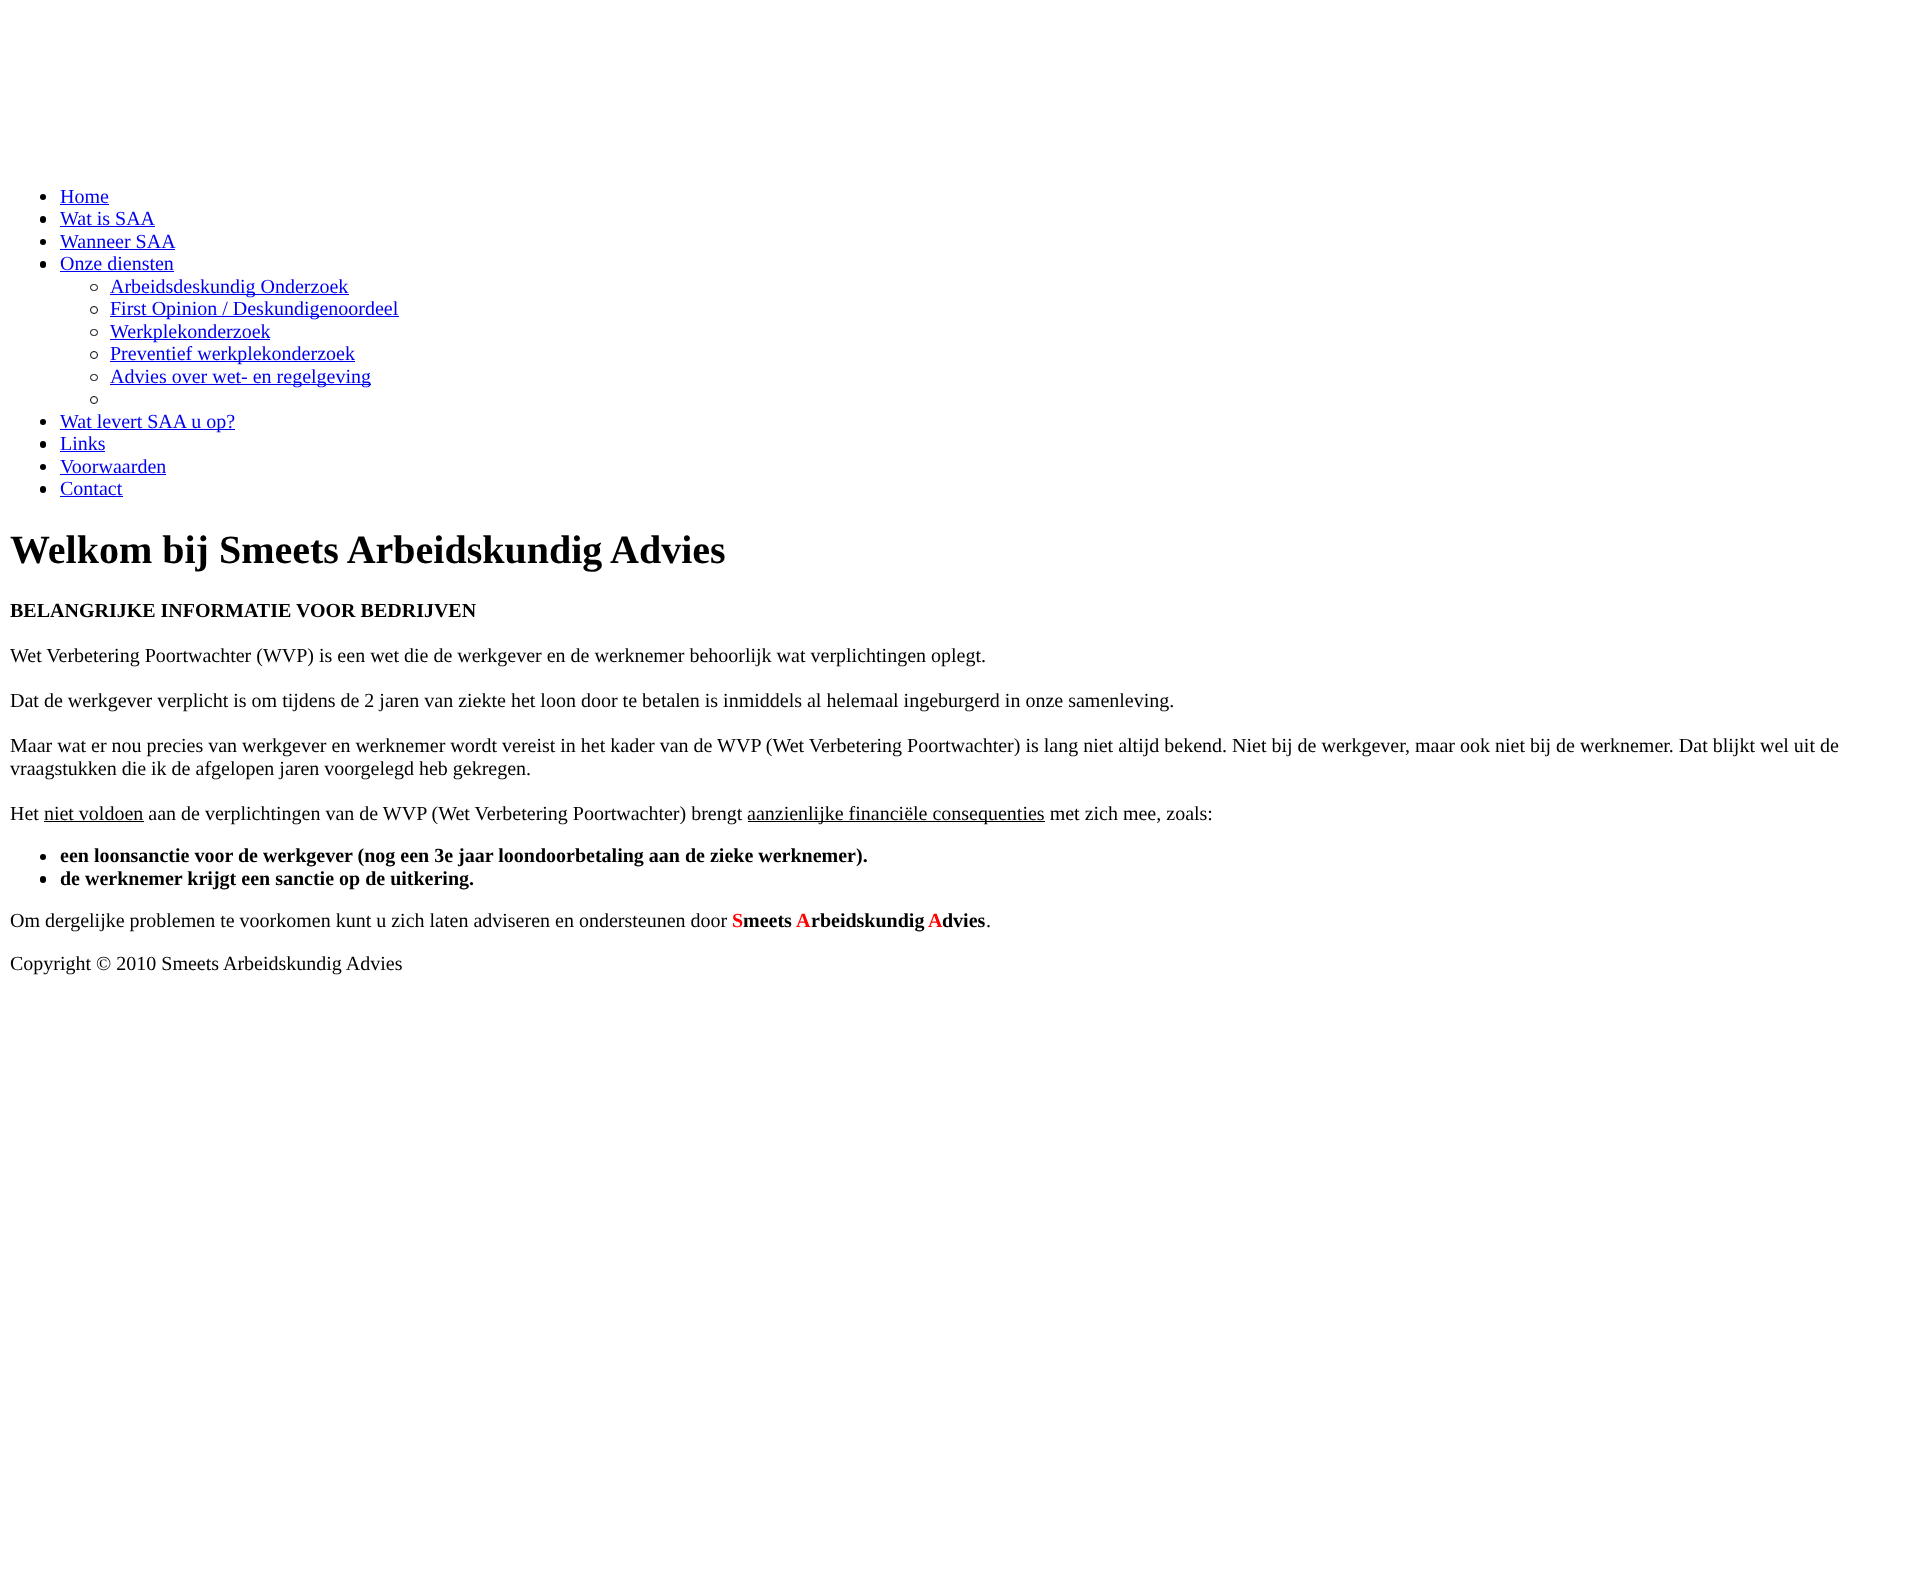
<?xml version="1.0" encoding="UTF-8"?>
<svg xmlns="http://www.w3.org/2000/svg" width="1925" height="1572">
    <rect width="100%" height="100%" fill="#FFFFFF"/>
    <circle cx="43" cy="197" r="3" fill="#000000"/>
    <text x="60" y="203" font-family="Liberation Serif" font-size="20" fill="#0000EE">Home</text>
    <rect x="60" y="204" width="49" height="1" fill="#0000EE"/>
    <rect x="40" y="216" width="6" height="7" rx="3" fill="#000000"/>
    <text x="60" y="225" font-family="Liberation Serif" font-size="20" fill="#0000EE">Wat is SAA</text>
    <rect x="60" y="226" width="95" height="1" fill="#0000EE"/>
    <circle cx="43" cy="242" r="3" fill="#000000"/>
    <text x="60" y="248" font-family="Liberation Serif" font-size="20" fill="#0000EE">Wanneer SAA</text>
    <rect x="60" y="249" width="115" height="1" fill="#0000EE"/>
    <rect x="40" y="261" width="6" height="7" rx="3" fill="#000000"/>
    <text x="60" y="270" font-family="Liberation Serif" font-size="20" fill="#0000EE">Onze diensten</text>
    <rect x="60" y="271" width="114" height="1" fill="#0000EE"/>
    <rect x="90.5" y="284.5" width="7" height="6" rx="3" fill="none" stroke="#000000"/>
    <rect x="110" y="294" width="239" height="1" fill="#0000EE"/>
    <text x="110" y="293" font-family="Liberation Serif" font-size="20" fill="#0000EE">Arbeidsdeskundig Onderzoek</text>
    <circle cx="94" cy="310" r="3.5" fill="none" stroke="#000000"/>
    <rect x="110" y="316" width="289" height="1" fill="#0000EE"/>
    <text x="110" y="315" font-family="Liberation Serif" font-size="20" fill="#0000EE">First Opinion / Deskundigenoordeel</text>
    <rect x="90.5" y="329.5" width="7" height="6" rx="3" fill="none" stroke="#000000"/>
    <rect x="110" y="339" width="160" height="1" fill="#0000EE"/>
    <text x="110" y="338" font-family="Liberation Serif" font-size="20" fill="#0000EE">Werkplekonderzoek</text>
    <circle cx="94" cy="355" r="3.5" fill="none" stroke="#000000"/>
    <rect x="110" y="361" width="245" height="1" fill="#0000EE"/>
    <text x="110" y="360" font-family="Liberation Serif" font-size="20" fill="#0000EE">Preventief werkplekonderzoek</text>
    <rect x="90.5" y="374.5" width="7" height="6" rx="3" fill="none" stroke="#000000"/>
    <rect x="110" y="384" width="261" height="1" fill="#0000EE"/>
    <text x="110" y="383" font-family="Liberation Serif" font-size="20" fill="#0000EE">Advies over wet- en regelgeving</text>
    <circle cx="94" cy="400" r="3.5" fill="none" stroke="#000000"/>
    <circle cx="43" cy="422" r="3" fill="#000000"/>
    <rect x="60" y="429" width="175" height="1" fill="#0000EE"/>
    <text x="60" y="428" font-family="Liberation Serif" font-size="20" fill="#0000EE">Wat levert SAA u op?</text>
    <rect x="40" y="441" width="6" height="7" rx="3" fill="#000000"/>
    <text x="60" y="450" font-family="Liberation Serif" font-size="20" fill="#0000EE">Links</text>
    <rect x="60" y="451" width="45" height="1" fill="#0000EE"/>
    <circle cx="43" cy="467" r="3" fill="#000000"/>
    <text x="60" y="473" font-family="Liberation Serif" font-size="20" fill="#0000EE">Voorwaarden</text>
    <rect x="60" y="474" width="106" height="1" fill="#0000EE"/>
    <rect x="40" y="486" width="6" height="7" rx="3" fill="#000000"/>
    <text x="60" y="495" font-family="Liberation Serif" font-size="20" fill="#0000EE">Contact</text>
    <rect x="60" y="496" width="63" height="1" fill="#0000EE"/>
    <text x="10" y="563" font-family="Liberation Serif" font-size="40" font-weight="700" fill="#000000">Welkom bij Smeets Arbeidskundig Advies</text>
    <text x="10" y="617" font-family="Liberation Serif" font-size="20" font-weight="700" fill="#000000">BELANGRIJKE INFORMATIE VOOR BEDRIJVEN</text>
    <text x="10" y="662" font-family="Liberation Serif" font-size="20" fill="#000000">Wet Verbetering Poortwachter (WVP) is een wet die de werkgever en de werknemer behoorlijk wat verplichtingen oplegt.</text>
    <text x="10" y="707" font-family="Liberation Serif" font-size="20" fill="#000000">Dat de werkgever verplicht is om tijdens de 2 jaren van ziekte het loon door te betalen is inmiddels al helemaal ingeburgerd in onze samenleving.</text>
    <text font-family="Liberation Serif" font-size="20" fill="#000000">
        <tspan x="10" y="752">Maar wat er nou precies van werkgever en werknemer wordt vereist in het kader van de WVP (Wet Verbetering Poortwachter) is lang niet altijd bekend. Niet bij de werkgever, maar ook niet bij de werknemer. Dat blijkt wel uit de</tspan>
        <tspan x="10" y="775">vraagstukken die ik de afgelopen jaren voorgelegd heb gekregen.</tspan>
    </text>
    <text x="10" y="820" font-family="Liberation Serif" font-size="20" fill="#000000">Het niet voldoen aan de verplichtingen van de WVP (Wet Verbetering Poortwachter) brengt</text>
    <rect x="748" y="821" width="297" height="1" fill="#000000"/>
    <text x="747" y="820" font-family="Liberation Serif" font-size="20" fill="#000000">aanzienlijke financiële consequenties met zich mee, zoals:</text>
    <rect x="44" y="821" width="100" height="1" fill="#000000"/>
    <circle cx="43" cy="857" r="3" fill="#000000"/>
    <text x="60" y="862" font-family="Liberation Serif" font-size="20" font-weight="700" fill="#000000">een loonsanctie voor de werkgever (nog een 3e jaar loondoorbetaling aan de zieke werknemer).</text>
    <rect x="40" y="876" width="6" height="7" rx="3" fill="#000000"/>
    <text x="60" y="885" font-family="Liberation Serif" font-size="20" font-weight="700" fill="#000000">de werknemer krijgt een sanctie op de uitkering.</text>
    <text x="10" y="927" font-family="Liberation Serif" font-size="20" fill="#000000">Om dergelijke problemen te voorkomen kunt u zich laten adviseren en ondersteunen door</text>
    <text x="732" y="927" font-family="Liberation Serif" font-size="20" font-weight="700" fill="#FF0000">S</text>
    <text x="743" y="927" font-family="Liberation Serif" font-size="20" font-weight="700" fill="#000000">meets</text>
    <text x="796" y="927" font-family="Liberation Serif" font-size="20" font-weight="700" fill="#FF0000">A</text>
    <text x="811" y="927" font-family="Liberation Serif" font-size="20" font-weight="700" fill="#000000">rbeidskundig</text>
    <text x="928" y="927" font-family="Liberation Serif" font-size="20" font-weight="700" fill="#FF0000">A</text>
    <text x="942" y="927" font-family="Liberation Serif" font-size="20" font-weight="700" fill="#000000">dvies</text>
    <text x="986" y="927" font-family="Liberation Serif" font-size="20" fill="#000000">.</text>
    <text x="10" y="970" font-family="Liberation Serif" font-size="20" fill="#000000">Copyright © 2010 Smeets Arbeidskundig Advies</text>
</svg>
